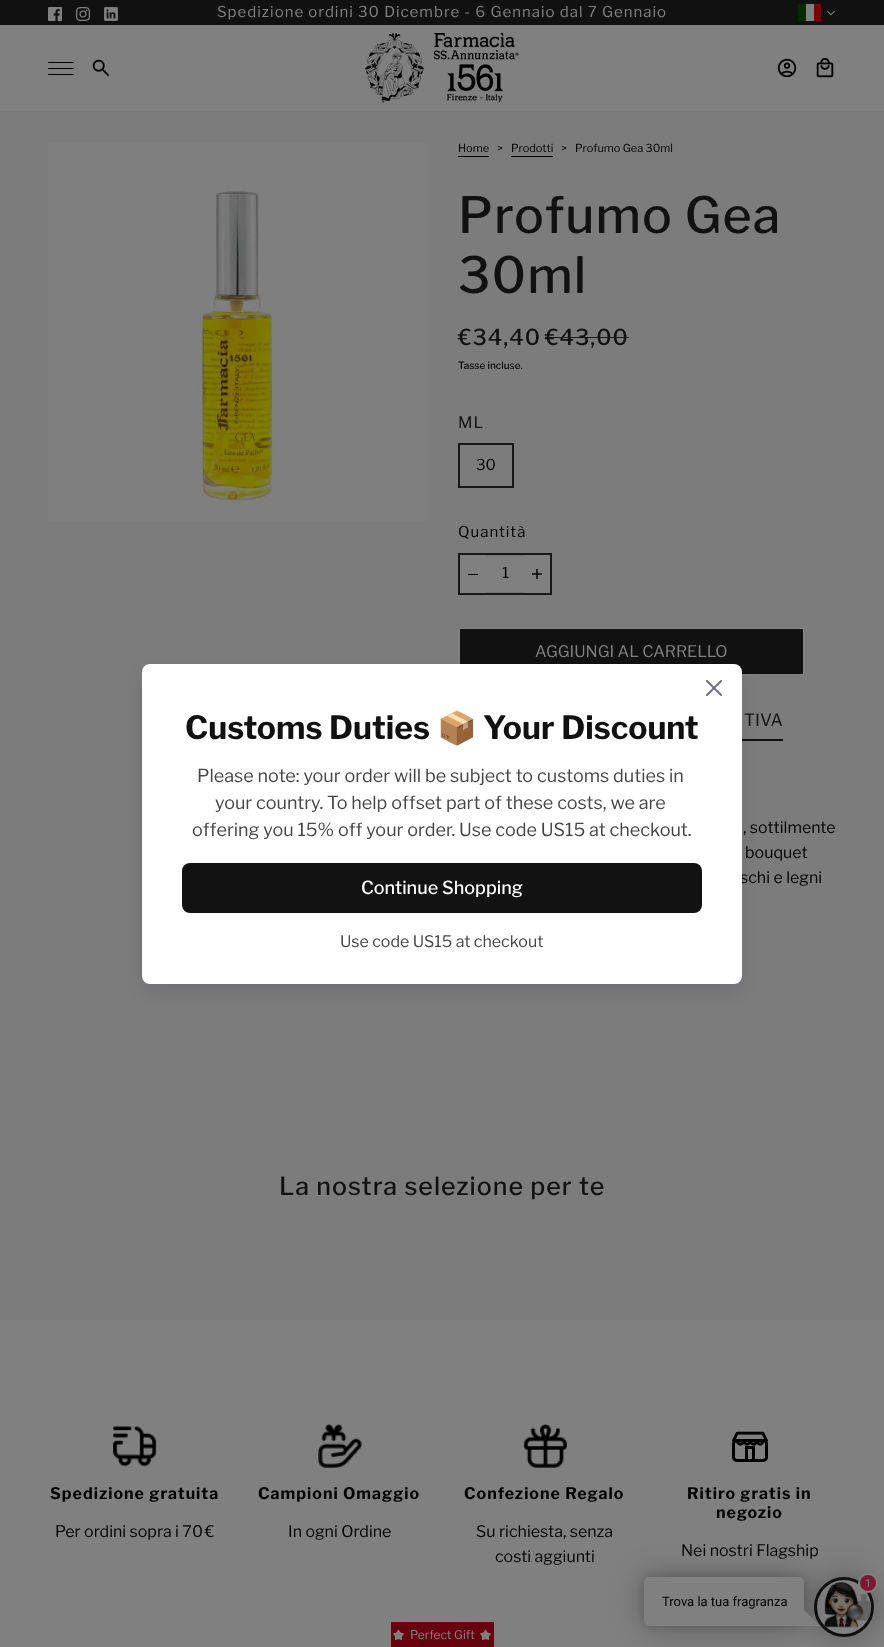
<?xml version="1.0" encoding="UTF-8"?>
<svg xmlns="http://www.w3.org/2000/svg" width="884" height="1647">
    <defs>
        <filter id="blur1" x="-50%" y="-200%" width="200%" height="500%"><feGaussianBlur stdDeviation="10"/></filter>
        <clipPath id="clip1"><path d="M 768 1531 H 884 V 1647 H 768 Z M 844 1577 C 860.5 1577 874 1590.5 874 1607 C 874 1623.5 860.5 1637 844 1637 C 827.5 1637 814 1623.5 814 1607 C 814 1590.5 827.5 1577 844 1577 Z" clip-rule="evenodd"/></clipPath>
        <filter id="blur2" x="-50%" y="-200%" width="200%" height="500%"><feGaussianBlur stdDeviation="15"/></filter>
        <filter id="blur3" x="-50%" y="-200%" width="200%" height="500%"><feGaussianBlur stdDeviation="5"/></filter>
    </defs>
    <rect width="100%" height="100%" fill="#808080"/>
    <rect x="0" y="0" width="884" height="25" fill="#111111"/>
    <image x="48" y="7" width="14" height="14" href="img_01.png"/>
    <image x="76" y="7" width="14" height="14" href="img_02.png"/>
    <image x="104" y="7" width="14" height="14" href="img_03.png"/>
    <text x="217" y="17" font-family="Libre Franklin" font-size="15" letter-spacing="1" fill="#808080">Spedizione ordini 30 Dicembre - 6 Gennaio dal 7 Gennaio</text>
    <rect x="806" y="4" width="8" height="17" fill="#808080"/>
    <rect x="798" y="4" width="8" height="17" fill="#002C00"/>
    <rect x="814" y="4" width="7" height="17" fill="#7E0000"/>
    <image x="826" y="10" width="10" height="6" href="img_04.png"/>
    <rect x="48" y="62" width="26" height="1" rx="0.5" fill="#000000"/>
    <rect x="48" y="68" width="26" height="1" rx="0.5" fill="#000000"/>
    <rect x="48" y="74" width="26" height="1" rx="0.5" fill="#000000"/>
    <image x="92" y="59" width="18" height="18" href="img_05.png"/>
    <image x="365" y="33" width="154" height="70" href="img_06.png"/>
    <image x="777" y="58" width="20" height="20" href="img_07.png"/>
    <image x="816" y="57" width="18" height="21" href="img_08.png"/>
    <rect x="0" y="111" width="884" height="1209" fill="#7C7C7C"/>
    <image x="48" y="143" width="378" height="378" href="img_09.png"/>
    <text x="458" y="152" font-family="Libre Franklin" font-size="11" fill="#000000">Home</text>
    <rect x="458" y="156" width="31" height="1" fill="#000000"/>
    <text x="497" y="152" font-family="Libre Franklin" font-size="11" fill="#000000">&gt;</text>
    <text x="511" y="152" font-family="Libre Franklin" font-size="11" fill="#000000">Prodotti</text>
    <rect x="511" y="156" width="42" height="1" fill="#000000"/>
    <text x="561" y="152" font-family="Libre Franklin" font-size="11" fill="#000000">&gt;</text>
    <text x="575" y="152" font-family="Libre Franklin" font-size="11" fill="#000000">Profumo Gea 30ml</text>
    <text font-family="Libre Franklin" font-size="50" font-weight="500" letter-spacing="1" fill="#111111">
        <tspan x="458" y="233">Profumo Gea</tspan>
        <tspan x="458" y="293">30ml</tspan>
    </text>
    <text x="458" y="345" font-family="Libre Franklin" font-size="22" font-weight="500" letter-spacing="1" fill="#111111">€34,40</text>
    <text x="545" y="345" font-family="Libre Franklin" font-size="22" font-weight="500" letter-spacing="1" fill="#111111">€43,00</text>
    <rect x="545" y="337" width="84" height="1" fill="#181818"/>
    <text x="458" y="369" font-family="Libre Franklin" font-size="10" font-weight="500" fill="#000000">Tasse incluse.</text>
    <text x="458" y="428" font-family="Libre Franklin" font-size="16" letter-spacing="1" fill="#111111">ML</text>
    <rect x="459" y="444" width="54" height="43" fill="none" stroke="#181818" stroke-width="2"/>
    <text x="476" y="470" font-family="Libre Franklin" font-size="15" fill="#000000">30</text>
    <text x="458" y="537" font-family="Libre Franklin" font-size="15" letter-spacing="1" fill="#000000">Quantità</text>
    <rect x="459" y="554" width="92" height="40" fill="#808080" stroke="#181818" stroke-width="2"/>
    <rect x="468" y="574" width="10" height="1" fill="#000000"/>
    <rect x="486" y="555" width="38" height="1" fill="#737373"/>
    <rect x="486" y="592" width="38" height="1" fill="#737373"/>
    <text x="502" y="578" font-family="Libre Franklin" font-size="15" fill="#000000">1</text>
    <image x="532" y="569" width="10" height="10" href="img_10.png"/>
    <rect x="459" y="628" width="345" height="47" fill="#111111" stroke="#808080" stroke-width="2"/>
    <text x="535" y="657" font-family="Libre Franklin" font-size="16" fill="#808080">AGGIUNGI AL CARRELLO</text>
    <rect x="742" y="739" width="41" height="2" fill="#111111"/>
    <text x="744" y="726" font-family="Libre Franklin" font-size="17" fill="#111111">TIVA</text>
    <text x="743" y="833" font-family="Libre Franklin" font-size="16" fill="#000000">, sottilmente</text>
    <text x="745" y="858" font-family="Libre Franklin" font-size="16" fill="#000000">bouquet</text>
    <text x="740" y="883" font-family="Libre Franklin" font-size="16" fill="#000000">schi e legni</text>
    <text x="279" y="1195" font-family="Libre Franklin" font-size="25" font-weight="500" letter-spacing="1" fill="#111111">La nostra selezione per te</text>
    <image x="113" y="1426" width="44" height="41" href="img_11.png"/>
    <text x="50" y="1499" font-family="Libre Franklin" font-size="16" font-weight="700" letter-spacing="1" fill="#000000">Spedizione gratuita</text>
    <text x="55" y="1537" font-family="Libre Franklin" font-size="16" fill="#000000">Per ordini sopra i 70 €</text>
    <image x="318" y="1424" width="44" height="44" href="img_12.png"/>
    <text x="258" y="1499" font-family="Libre Franklin" font-size="16" font-weight="700" letter-spacing="1" fill="#000000">Campioni Omaggio</text>
    <text x="288" y="1537" font-family="Libre Franklin" font-size="16" fill="#000000">In ogni Ordine</text>
    <image x="523" y="1424" width="44" height="44" href="img_13.png"/>
    <text x="464" y="1499" font-family="Libre Franklin" font-size="16" font-weight="700" letter-spacing="1" fill="#000000">Confezione Regalo</text>
    <text x="476" y="1537" font-family="Libre Franklin" font-size="16" fill="#000000">Su richiesta, senza</text>
    <text x="495" y="1562" font-family="Libre Franklin" font-size="16" fill="#000000">costi aggiunti</text>
    <image x="732" y="1431" width="36" height="31" href="img_14.png"/>
    <text x="687" y="1499" font-family="Libre Franklin" font-size="16" font-weight="700" letter-spacing="1" fill="#000000">Ritiro gratis in</text>
    <text x="716" y="1518" font-family="Libre Franklin" font-size="16" font-weight="700" letter-spacing="1" fill="#000000">negozio</text>
    <text x="681" y="1556" font-family="Libre Franklin" font-size="16" fill="#000000">Nei nostri Flagship</text>
    <rect x="142" y="672" width="600" height="320" rx="8" fill="#121127" fill-opacity="0.1" filter="url(#blur1)"/>
    <rect x="142" y="664" width="600" height="320" rx="8" fill="#FFFFFF"/>
    <image x="706" y="680" width="16" height="16" href="img_15.png"/>
    <text x="185" y="739" font-family="Libre Franklin" font-size="32" font-weight="700" fill="#111111">Customs Duties</text>
    <text x="437" y="739" font-family="Noto Color Emoji" font-size="32" font-weight="700" fill="#111111">📦</text>
    <text x="483" y="739" font-family="Libre Franklin" font-size="32" font-weight="700" fill="#111111">Your Discount</text>
    <text x="197" y="782" font-family="Libre Franklin" font-size="18" fill="#454545">Please note: your order will be subject to customs duties in</text>
    <text x="215" y="809" font-family="Libre Franklin" font-size="18" fill="#454545">your country. To help offset part of these costs, we are</text>
    <text x="192" y="836" font-family="Libre Franklin" font-size="18" fill="#454545">offering you 15% off your order. Use code US15 at checkout.</text>
    <rect x="182" y="863" width="520" height="50" rx="8" fill="#121212"/>
    <text x="361" y="894" font-family="Libre Franklin" font-size="18" font-weight="500" fill="#FFFFFF">Continue Shopping</text>
    <text x="340" y="947" font-family="Libre Franklin" font-size="16" fill="#454545">Use code US15 at checkout</text>
    <g clip-path="url(#clip1)">
        <rect x="814" y="1577" width="60" height="60" rx="30" fill="#000000" fill-opacity="0.3" filter="url(#blur2)"/>
    </g>
    <circle cx="844" cy="1607" r="28.5" fill="none" stroke="#0F0F0F" stroke-width="3"/>
    <image x="824" y="1582" width="47" height="46" href="img_16.png"/>
    <circle cx="868" cy="1583" r="9" fill="#7C1736" stroke="#808080" stroke-width="2"/>
    <text x="865" y="1587" font-family="Roboto" font-size="11" fill="#808080">1</text>
    <rect x="644" y="1577" width="160" height="49" rx="5" fill="#000000" fill-opacity="0.3" filter="url(#blur2)"/>
    <rect x="644" y="1577" width="160" height="49" rx="5" fill="#000000" fill-opacity="0.15" filter="url(#blur3)"/>
    <path d="M 649 1577 H 799 C 802 1577 804 1579 804 1582 V 1626 H 649 C 646 1626 644 1624 644 1621 V 1582 C 644 1579 646 1577 649 1577 Z" fill="#808080"/>
    <text x="662" y="1606" font-family="Roboto" font-size="13" fill="#000000">Trova la tua fragranza</text>
    <path d="M 787 1626 V 1593 L 820 1626 Z" fill="#808080"/>
    <rect x="391" y="1622" width="103" height="25" fill="#68010E"/>
    <image x="393" y="1629" width="12" height="12" href="img_17.png"/>
    <text x="410" y="1639" font-family="Libre Franklin" font-size="12" fill="#808080">Perfect Gift</text>
    <image x="480" y="1629" width="12" height="12" href="img_17.png"/>
</svg>
